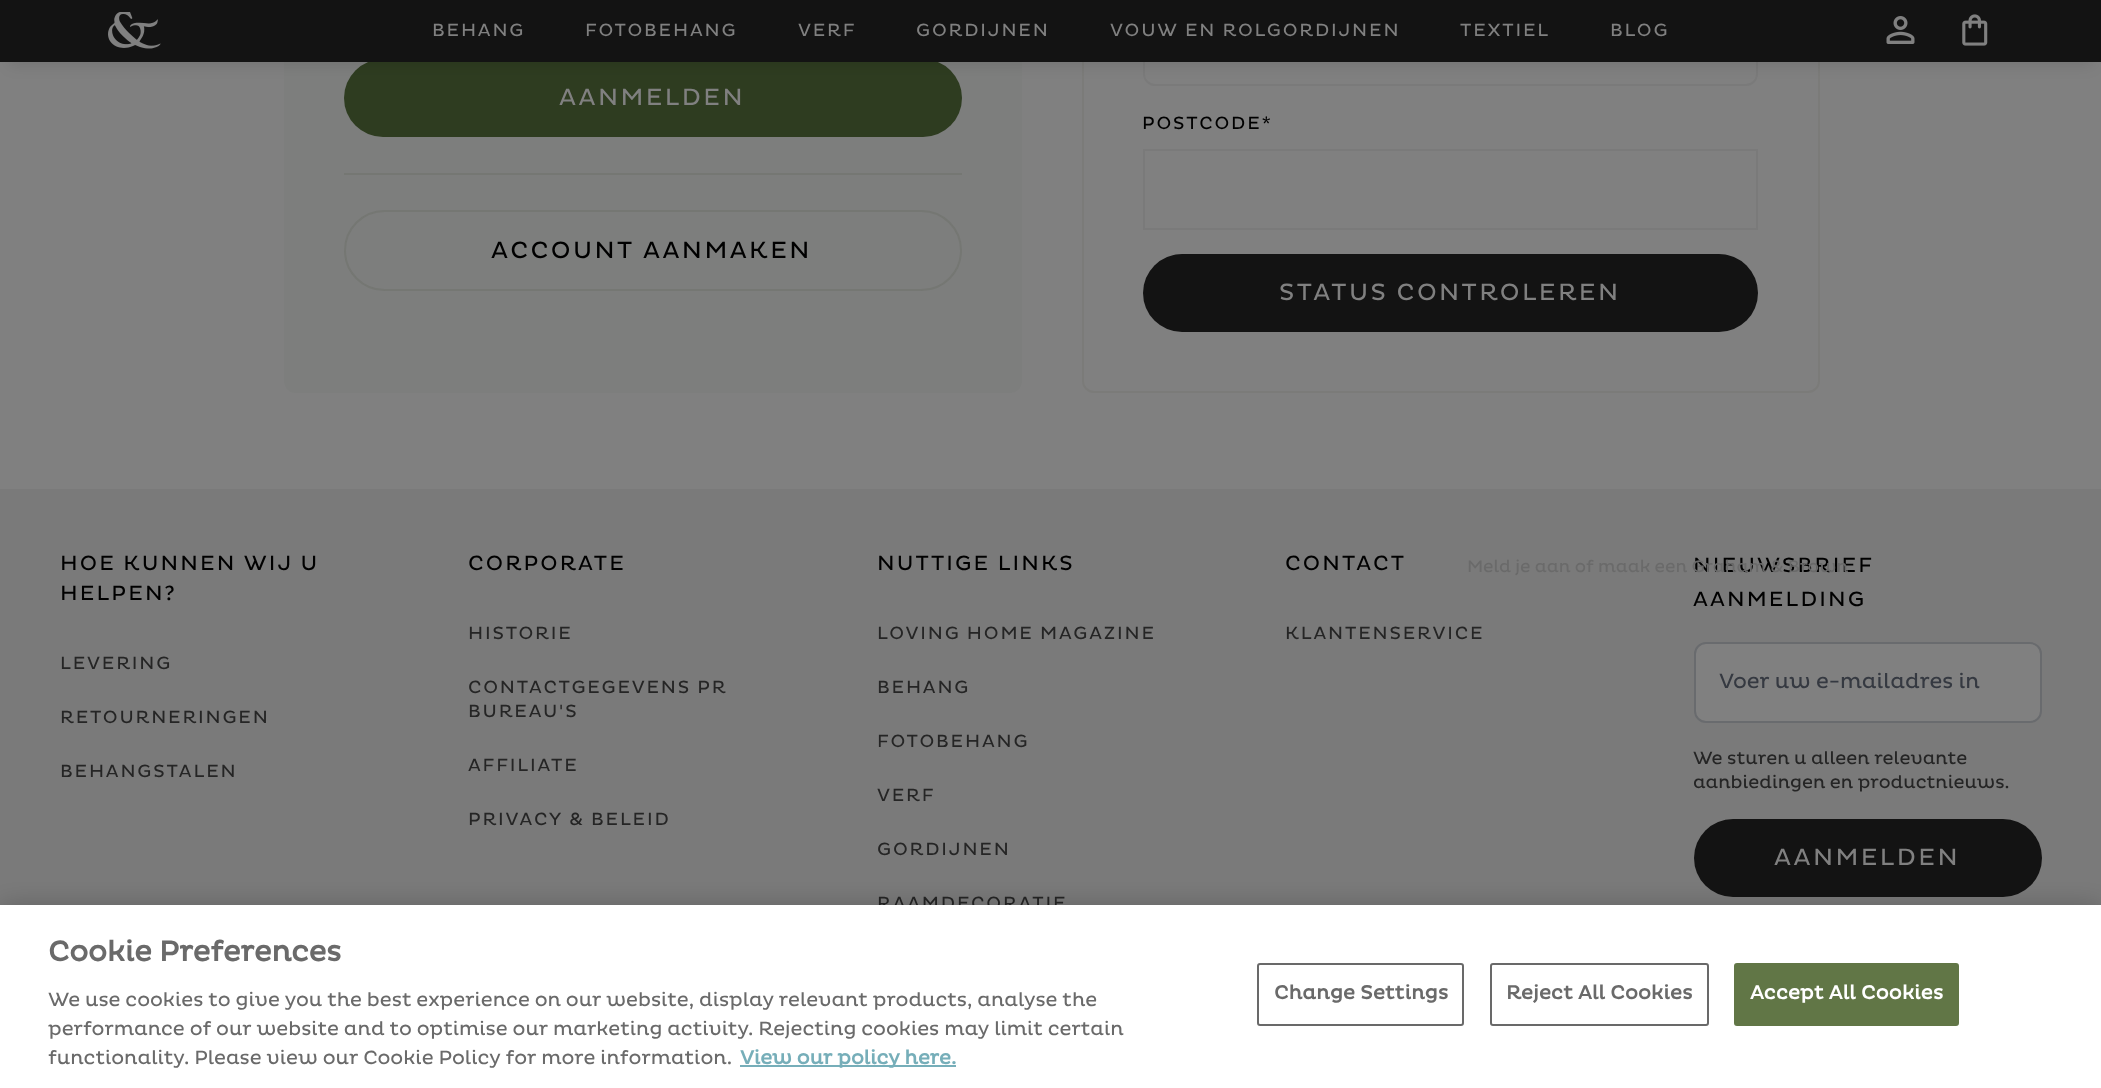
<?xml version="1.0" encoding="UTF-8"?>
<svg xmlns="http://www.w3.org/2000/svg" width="2101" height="1088">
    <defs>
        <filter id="blur1" x="-50%" y="-200%" width="200%" height="500%"><feGaussianBlur stdDeviation="7.5"/></filter>
        <filter id="blur2" x="-50%" y="-200%" width="200%" height="500%"><feGaussianBlur stdDeviation="13.5"/></filter>
    </defs>
    <rect width="100%" height="100%" fill="#808080"/>
    <rect x="284" y="-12" width="738" height="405" rx="12" fill="#7D7E7D"/>
    <rect x="344" y="59" width="618" height="78" rx="39" fill="#2E3C20"/>
    <rect x="1083" y="-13" width="736" height="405" rx="11" fill="none" stroke="#7B7B79" stroke-width="2"/>
    <rect x="1144" y="6" width="613" height="79" rx="11" fill="none" stroke="#7A7A7A" stroke-width="2"/>
    <rect x="9" y="21" width="2084" height="44" fill="#000000" fill-opacity="0.1" filter="url(#blur1)"/>
    <rect x="0" y="0" width="2101" height="62" fill="#131313"/>
    <image x="108" y="12" width="53" height="37" href="img_01.png"/>
    <text x="432" y="36" font-family="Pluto" font-size="18" letter-spacing="1.8" fill="#808080">BEHANG</text>
    <text x="585" y="36" font-family="Pluto" font-size="18" letter-spacing="1.8" fill="#808080">FOTOBEHANG</text>
    <text x="798" y="36" font-family="Pluto" font-size="18" letter-spacing="1.8" fill="#808080">VERF</text>
    <text x="916" y="36" font-family="Pluto" font-size="18" letter-spacing="1.8" fill="#808080">GORDIJNEN</text>
    <text x="1110" y="36" font-family="Pluto" font-size="18" letter-spacing="1.8" fill="#808080">VOUW EN ROLGORDIJNEN</text>
    <text x="1460" y="36" font-family="Pluto" font-size="18" letter-spacing="1.8" fill="#808080">TEXTIEL</text>
    <text x="1610" y="36" font-family="Pluto" font-size="18" letter-spacing="1.8" fill="#808080">BLOG</text>
    <image x="1962" y="14" width="26" height="32" href="img_02.png"/>
    <image x="1886" y="16" width="29" height="28" href="img_03.png"/>
    <rect x="0" y="489" width="2101" height="416" fill="#7A7A7A"/>
    <text x="1693" y="572" font-family="Pluto" font-size="21" letter-spacing="2.1" fill="#000000">NIEUWSBRIEF</text>
    <text x="1467" y="572" font-family="Pluto" font-size="17.1" fill="#6A6A6A">Meld je aan of maak een Graham &amp; Brown</text>
    <text x="559" y="105" font-family="Pluto" font-size="24" letter-spacing="2.4" fill="#808080">AANMELDEN</text>
    <rect x="344" y="173" width="618" height="2" fill="#757773"/>
    <rect x="345" y="211" width="616" height="79" rx="39.5" fill="none" stroke="#757773" stroke-width="2"/>
    <text x="491" y="258" font-family="Pluto" font-size="24" letter-spacing="2.4" fill="#000000">ACCOUNT AANMAKEN</text>
    <text x="1142" y="129" font-family="Pluto" font-size="18" letter-spacing="1.8" fill="#000000">POSTCODE*</text>
    <rect x="1144" y="150" width="613" height="79" fill="none" stroke="#7A7A7A" stroke-width="2"/>
    <rect x="1143" y="254" width="615" height="78" rx="39" fill="#131313"/>
    <text x="1279" y="300" font-family="Pluto" font-size="24" letter-spacing="2.4" fill="#808080">STATUS CONTROLEREN</text>
    <text font-family="Pluto" font-size="21" letter-spacing="2.1" fill="#000000">
        <tspan x="60" y="570">HOE KUNNEN WIJ U</tspan>
        <tspan x="60" y="600">HELPEN?</tspan>
    </text>
    <text x="60" y="669" font-family="Pluto" font-size="18" letter-spacing="1.8" fill="#252525">LEVERING</text>
    <text x="60" y="723" font-family="Pluto" font-size="18" letter-spacing="1.8" fill="#252525">RETOURNERINGEN</text>
    <text x="60" y="777" font-family="Pluto" font-size="18" letter-spacing="1.8" fill="#252525">BEHANGSTALEN</text>
    <text x="468" y="570" font-family="Pluto" font-size="21" letter-spacing="2.1" fill="#000000">CORPORATE</text>
    <text x="468" y="639" font-family="Pluto" font-size="18" letter-spacing="1.8" fill="#252525">HISTORIE</text>
    <text font-family="Pluto" font-size="18" letter-spacing="1.8" fill="#252525">
        <tspan x="468" y="693">CONTACTGEGEVENS PR</tspan>
        <tspan x="468" y="717">BUREAU'S</tspan>
    </text>
    <text x="468" y="771" font-family="Pluto" font-size="18" letter-spacing="1.8" fill="#252525">AFFILIATE</text>
    <text x="468" y="825" font-family="Pluto" font-size="18" letter-spacing="1.8" fill="#252525">PRIVACY &amp; BELEID</text>
    <text x="877" y="570" font-family="Pluto" font-size="21" letter-spacing="2.1" fill="#000000">NUTTIGE LINKS</text>
    <text x="877" y="639" font-family="Pluto" font-size="18" letter-spacing="1.8" fill="#252525">LOVING HOME MAGAZINE</text>
    <text x="877" y="693" font-family="Pluto" font-size="18" letter-spacing="1.8" fill="#252525">BEHANG</text>
    <text x="877" y="747" font-family="Pluto" font-size="18" letter-spacing="1.8" fill="#252525">FOTOBEHANG</text>
    <text x="877" y="801" font-family="Pluto" font-size="18" letter-spacing="1.8" fill="#252525">VERF</text>
    <text x="877" y="855" font-family="Pluto" font-size="18" letter-spacing="1.8" fill="#252525">GORDIJNEN</text>
    <text x="877" y="909" font-family="Pluto" font-size="18" letter-spacing="1.8" fill="#252525">RAAMDECORATIE</text>
    <text x="1285" y="570" font-family="Pluto" font-size="21" letter-spacing="2.1" fill="#000000">CONTACT</text>
    <text x="1285" y="639" font-family="Pluto" font-size="18" letter-spacing="1.8" fill="#252525">KLANTENSERVICE</text>
    <text x="1693" y="606" font-family="Pluto" font-size="21" letter-spacing="2.1" fill="#000000">AANMELDING</text>
    <rect x="1695" y="643" width="346" height="79" rx="11" fill="#808080" stroke="#696B6E" stroke-width="2"/>
    <text x="1719" y="688" font-family="Pluto" font-size="21" fill="#353941">Voer uw e-mailadres in</text>
    <text font-family="Pluto" font-size="18" fill="#252525">
        <tspan x="1693" y="764">We sturen u alleen relevante</tspan>
        <tspan x="1693" y="788">aanbiedingen en productnieuws.</tspan>
    </text>
    <rect x="1694" y="819" width="348" height="78" rx="39" fill="#131313"/>
    <text x="1774" y="865" font-family="Pluto" font-size="24" letter-spacing="2.4" fill="#808080">AANMELDEN</text>
    <rect x="0" y="905" width="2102" height="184" fill="#000000" fill-opacity="0.2" filter="url(#blur2)"/>
    <rect x="0" y="905" width="2101" height="183" fill="#FFFFFF"/>
    <text x="48" y="961" font-family="Pluto" font-size="28.75" font-weight="700" fill="#6A6A6A">Cookie Preferences</text>
    <text font-family="Pluto" font-size="19.5" fill="#6A6A6A">
        <tspan x="48" y="1006">We use cookies to give you the best experience on our website, display relevant products, analyse the</tspan>
        <tspan x="48" y="1035">performance of our website and to optimise our marketing activity. Rejecting cookies may limit certain</tspan>
        <tspan x="48" y="1064">functionality. Please view our Cookie Policy for more information.</tspan>
    </text>
    <rect x="740" y="1065" width="216" height="2" fill="#76AEB9"/>
    <text x="740" y="1064" font-family="Pluto" font-size="19.5" font-weight="700" fill="#76AEB9">View our policy here.</text>
    <rect x="1258" y="964" width="205" height="61" rx="2" fill="none" stroke="#696969" stroke-width="2"/>
    <text x="1274" y="999" font-family="Pluto" font-size="19.5" font-weight="700" letter-spacing="0.25" fill="#6A6A6A">Change Settings</text>
    <rect x="1491" y="964" width="217" height="61" rx="2" fill="none" stroke="#696969" stroke-width="2"/>
    <text x="1506" y="999" font-family="Pluto" font-size="19.5" font-weight="700" letter-spacing="0.25" fill="#6A6A6A">Reject All Cookies</text>
    <rect x="1735" y="964" width="223" height="61" rx="2" fill="#617646" stroke="#617646" stroke-width="2"/>
    <text x="1750" y="999" font-family="Pluto" font-size="19.5" font-weight="700" letter-spacing="0.25" fill="#FFFFFF">Accept All Cookies</text>
</svg>
